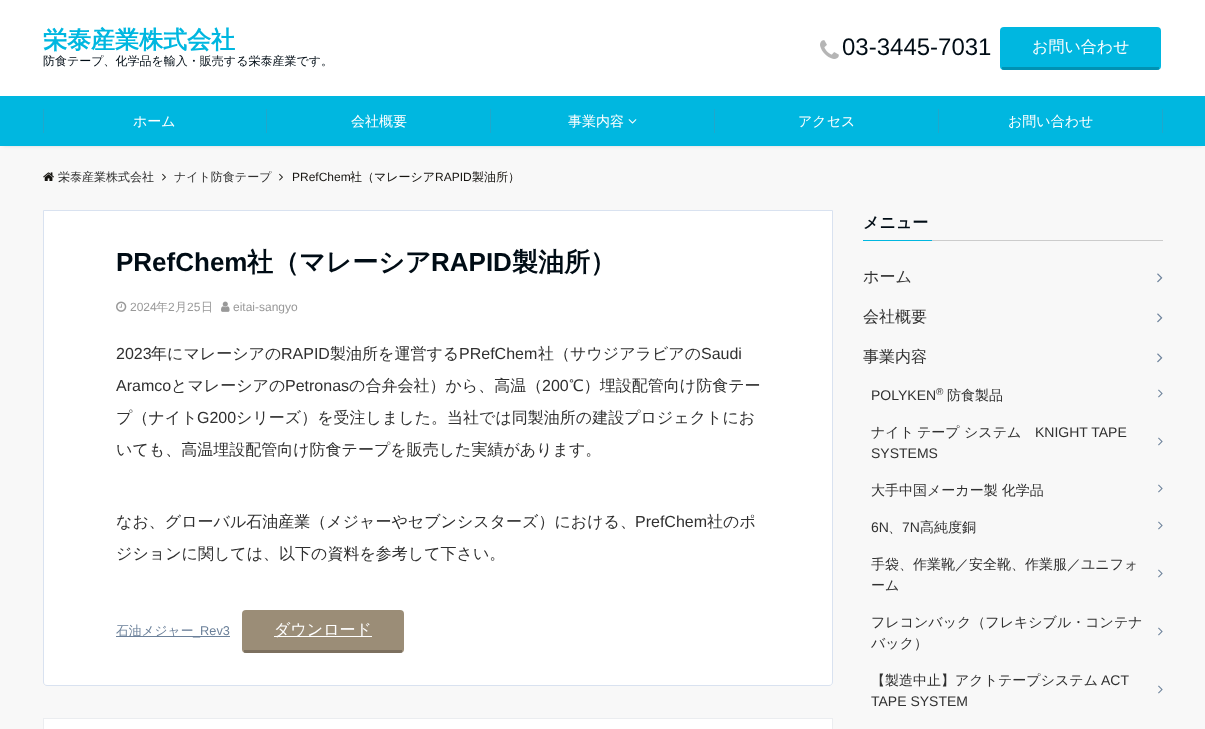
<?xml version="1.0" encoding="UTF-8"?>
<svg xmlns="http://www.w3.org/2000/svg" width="1205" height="729">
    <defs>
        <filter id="blur1" x="-50%" y="-200%" width="200%" height="500%"><feGaussianBlur stdDeviation="2"/></filter>
    </defs>
    <rect width="100%" height="100%" fill="#F8F8F8"/>
    <rect x="0" y="0" width="1205" height="96" fill="#FFFFFF"/>
    <text x="43" y="48" font-family="WenQuanYi Zen Hei" font-size="24" font-weight="700" fill="#00B7E0">栄泰産業株式会社</text>
    <text x="43" y="65" font-family="WenQuanYi Zen Hei" font-size="12" font-weight="500" fill="#000C15">防食テープ、化学品を輸入・販売する栄泰産業です。</text>
    <image x="820" y="40" width="19" height="19" href="img_01.png"/>
    <text x="842" y="55" font-family="Liberation Sans" font-size="24" fill="#000C15">03-3445-7031</text>
    <rect x="1000" y="27" width="161" height="43" rx="4" fill="#00B7E0"/>
    <rect x="1002" y="67" width="157" height="3" fill="#000000" fill-opacity="0.2"/>
    <text x="1032" y="52" font-family="WenQuanYi Zen Hei" font-size="16" font-weight="500" fill="#FFFFFF">お問い合わせ</text>
    <rect x="3" y="101" width="1199" height="44" fill="#000000" fill-opacity="0.2" filter="url(#blur1)"/>
    <rect x="0" y="96" width="1205" height="50" fill="#00B7E0"/>
    <rect x="43" y="109" width="1" height="24" fill="#20A7CB"/>
    <text x="133" y="126" font-family="WenQuanYi Zen Hei" font-size="14" font-weight="500" fill="#FFFFFF">ホーム</text>
    <rect x="266" y="109" width="1" height="24" fill="#20A7CB"/>
    <text x="351" y="126" font-family="WenQuanYi Zen Hei" font-size="14" font-weight="500" fill="#FFFFFF">会社概要</text>
    <rect x="490" y="109" width="1" height="24" fill="#20A7CB"/>
    <text x="568" y="126" font-family="WenQuanYi Zen Hei" font-size="14" font-weight="500" fill="#FFFFFF">事業内容</text>
    <image x="628" y="119" width="9" height="5" href="img_02.png"/>
    <rect x="714" y="109" width="1" height="24" fill="#20A7CB"/>
    <text x="798" y="126" font-family="WenQuanYi Zen Hei" font-size="14" font-weight="500" fill="#FFFFFF">アクセス</text>
    <rect x="938" y="109" width="1" height="24" fill="#20A7CB"/>
    <text x="1008" y="126" font-family="WenQuanYi Zen Hei" font-size="14" font-weight="500" fill="#FFFFFF">お問い合わせ</text>
    <rect x="1162" y="109" width="1" height="24" fill="#20A7CB"/>
    <image x="43" y="172" width="11" height="9" href="img_03.png"/>
    <text x="58" y="181" font-family="WenQuanYi Zen Hei" font-size="12" font-weight="500" fill="#303030">栄泰産業株式会社</text>
    <image x="162" y="173" width="4" height="8" href="img_04.png"/>
    <text x="174" y="181" font-family="WenQuanYi Zen Hei" font-size="12" font-weight="500" fill="#303030">ナイト防食テープ</text>
    <image x="279" y="173" width="4" height="8" href="img_04.png"/>
    <text x="292" y="181" font-family="Liberation Sans" font-size="12" fill="#161410">PRefChem</text>
    <text x="350" y="181" font-family="WenQuanYi Zen Hei" font-size="12" font-weight="500" fill="#161410">社（マレーシア</text>
    <text x="435" y="181" font-family="Liberation Sans" font-size="12" fill="#161410">RAPID</text>
    <text x="472" y="181" font-family="WenQuanYi Zen Hei" font-size="12" font-weight="500" fill="#161410">製油所）</text>
    <path d="M 43.5 210.5 H 832.5 V 682 C 832.5 684 831 685.5 829 685.5 H 47 C 45 685.5 43.5 684 43.5 682 Z" fill="#FFFFFF" stroke="#D9E2F0"/>
    <text x="116" y="271" font-family="Liberation Sans" font-size="26" font-weight="700" fill="#000C15">PRefChem</text>
    <text x="247" y="271" font-family="WenQuanYi Zen Hei" font-size="26" font-weight="700" fill="#000C15">社（マレーシア</text>
    <text x="431" y="271" font-family="Liberation Sans" font-size="26" font-weight="700" fill="#000C15">RAPID</text>
    <text x="512" y="271" font-family="WenQuanYi Zen Hei" font-size="26" font-weight="700" fill="#000C15">製油所）</text>
    <image x="116" y="301" width="11" height="11" href="img_05.png"/>
    <text x="130" y="311" font-family="Liberation Sans" font-size="12" fill="#999999">2024</text>
    <text x="156" y="311" font-family="WenQuanYi Zen Hei" font-size="12" font-weight="500" fill="#999999">年</text>
    <text x="168" y="311" font-family="Liberation Sans" font-size="12" fill="#999999">2</text>
    <text x="175" y="311" font-family="WenQuanYi Zen Hei" font-size="12" font-weight="500" fill="#999999">月</text>
    <text x="187" y="311" font-family="Liberation Sans" font-size="12" fill="#999999">25</text>
    <text x="201" y="311" font-family="WenQuanYi Zen Hei" font-size="12" font-weight="500" fill="#999999">日</text>
    <image x="221" y="301" width="9" height="11" href="img_06.png"/>
    <text x="233" y="311" font-family="Liberation Sans" font-size="12" fill="#999999">eitai-sangyo</text>
    <text x="116" y="359" font-family="Liberation Sans" font-size="16" fill="#303030">2023</text>
    <text x="151" y="359" font-family="WenQuanYi Zen Hei" font-size="16" font-weight="500" fill="#303030">年にマレーシアの</text>
    <text x="281" y="359" font-family="Liberation Sans" font-size="16" fill="#303030">RAPID</text>
    <text x="330" y="359" font-family="WenQuanYi Zen Hei" font-size="16" font-weight="500" fill="#303030">製油所を運営する</text>
    <text x="459" y="359" font-family="Liberation Sans" font-size="16" fill="#303030">PRefChem</text>
    <text x="538" y="359" font-family="WenQuanYi Zen Hei" font-size="16" font-weight="500" fill="#303030">社（サウジアラビアの</text>
    <text x="701" y="359" font-family="Liberation Sans" font-size="16" fill="#303030">Saudi</text>
    <text x="116" y="391" font-family="Liberation Sans" font-size="16" fill="#303030">Aramco</text>
    <text x="171" y="391" font-family="WenQuanYi Zen Hei" font-size="16" font-weight="500" fill="#303030">とマレーシアの</text>
    <text x="285" y="391" font-family="Liberation Sans" font-size="16" fill="#303030">Petronas</text>
    <text x="349" y="391" font-family="WenQuanYi Zen Hei" font-size="16" font-weight="500" fill="#303030">の合弁会社）から、高温（</text>
    <text x="542" y="391" font-family="Liberation Sans" font-size="16" fill="#303030">200</text>
    <text x="569" y="391" font-family="WenQuanYi Zen Hei" font-size="16" font-weight="500" fill="#303030">℃）埋設配管向け防食テー</text>
    <text x="116" y="423" font-family="WenQuanYi Zen Hei" font-size="16" font-weight="500" fill="#303030">プ（ナイト</text>
    <text x="197" y="423" font-family="Liberation Sans" font-size="16" fill="#303030">G200</text>
    <text x="236" y="423" font-family="WenQuanYi Zen Hei" font-size="16" font-weight="500" fill="#303030">シリーズ）を受注しました。当社では同製油所の建設プロジェクトにお</text>
    <text x="116" y="455" font-family="WenQuanYi Zen Hei" font-size="16" font-weight="500" fill="#303030">いても、高温埋設配管向け防食テープを販売した実績があります。</text>
    <text x="116" y="527" font-family="WenQuanYi Zen Hei" font-size="16" font-weight="500" fill="#303030">なお、グローバル石油産業（メジャーやセブンシスターズ）における、</text>
    <text x="635" y="527" font-family="Liberation Sans" font-size="16" fill="#303030">PrefChem</text>
    <text x="707" y="527" font-family="WenQuanYi Zen Hei" font-size="16" font-weight="500" fill="#303030">社のポ</text>
    <text x="116" y="559" font-family="WenQuanYi Zen Hei" font-size="16" font-weight="500" fill="#303030">ジションに関しては、以下の資料を参考して下さい。</text>
    <rect x="116" y="636" width="114" height="1" fill="#6C819A"/>
    <text x="116" y="635" font-family="WenQuanYi Zen Hei" font-size="12.75" font-weight="500" fill="#6C819A">石油メジャー</text>
    <text x="193" y="635" font-family="Liberation Sans" font-size="12.75" fill="#6C819A">_Rev3</text>
    <rect x="242" y="610" width="162" height="43" rx="4" fill="#9B8D77"/>
    <rect x="244" y="650" width="158" height="3" fill="#000000" fill-opacity="0.2"/>
    <rect x="274" y="636" width="98" height="1" fill="#FFFFFF"/>
    <text x="274" y="635" font-family="WenQuanYi Zen Hei" font-size="16" font-weight="500" fill="#FFFFFF">ダウンロード</text>
    <rect x="43.5" y="718.5" width="789" height="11" fill="none" stroke="#EBEDF0"/>
    <rect x="44" y="719" width="788" height="10" fill="#FFFFFF"/>
    <rect x="932" y="240" width="231" height="1" fill="#CCCCCC"/>
    <rect x="863" y="240" width="69" height="1" fill="#00B7E0"/>
    <text x="863" y="228" font-family="WenQuanYi Zen Hei" font-size="16" font-weight="700" fill="#000C15">メニュー</text>
    <text x="863" y="282" font-family="WenQuanYi Zen Hei" font-size="16" font-weight="500" fill="#303030">ホーム</text>
    <image x="1157" y="273" width="6" height="10" href="img_07.png"/>
    <text x="863" y="322" font-family="WenQuanYi Zen Hei" font-size="16" font-weight="500" fill="#303030">会社概要</text>
    <image x="1157" y="313" width="6" height="10" href="img_07.png"/>
    <text x="863" y="362" font-family="WenQuanYi Zen Hei" font-size="16" font-weight="500" fill="#303030">事業内容</text>
    <image x="1157" y="353" width="6" height="10" href="img_07.png"/>
    <text x="871" y="400" font-family="Liberation Sans" font-size="14" fill="#303030">POLYKEN</text>
    <text x="936" y="395" font-family="Liberation Sans" font-size="10" fill="#303030">®</text>
    <text x="947" y="400" font-family="WenQuanYi Zen Hei" font-size="14" font-weight="500" fill="#303030">防食製品</text>
    <image x="1158" y="389" width="5" height="9" href="img_08.png"/>
    <text x="871" y="437" font-family="WenQuanYi Zen Hei" font-size="14" font-weight="500" fill="#303030">ナイト</text>
    <text x="917" y="437" font-family="WenQuanYi Zen Hei" font-size="14" font-weight="500" fill="#303030">テープ</text>
    <text x="964" y="437" font-family="WenQuanYi Zen Hei" font-size="14" font-weight="500" fill="#303030">システム</text>
    <text x="1035" y="437" font-family="Liberation Sans" font-size="14" fill="#303030">KNIGHT TAPE</text>
    <image x="1158" y="437" width="5" height="9" href="img_08.png"/>
    <text x="871" y="458" font-family="Liberation Sans" font-size="14" fill="#303030">SYSTEMS</text>
    <text x="871" y="495" font-family="WenQuanYi Zen Hei" font-size="14" font-weight="500" fill="#303030">大手中国メーカー製 化学品</text>
    <image x="1158" y="484" width="5" height="9" href="img_08.png"/>
    <text x="871" y="532" font-family="Liberation Sans" font-size="14" fill="#303030">6N</text>
    <text x="888" y="532" font-family="WenQuanYi Zen Hei" font-size="14" font-weight="500" fill="#303030">、</text>
    <text x="902" y="532" font-family="Liberation Sans" font-size="14" fill="#303030">7N</text>
    <text x="920" y="532" font-family="WenQuanYi Zen Hei" font-size="14" font-weight="500" fill="#303030">高純度銅</text>
    <image x="1158" y="521" width="5" height="9" href="img_08.png"/>
    <text x="871" y="569" font-family="WenQuanYi Zen Hei" font-size="14" font-weight="500" fill="#303030">手袋、作業靴／安全靴、作業服／ユニフォ</text>
    <image x="1158" y="569" width="5" height="9" href="img_08.png"/>
    <text x="871" y="590" font-family="WenQuanYi Zen Hei" font-size="14" font-weight="500" fill="#303030">ーム</text>
    <text x="871" y="627" font-family="WenQuanYi Zen Hei" font-size="14" font-weight="500" fill="#303030">フレコンバック（フレキシブル・コンテナ</text>
    <image x="1158" y="627" width="5" height="9" href="img_08.png"/>
    <text x="871" y="648" font-family="WenQuanYi Zen Hei" font-size="14" font-weight="500" fill="#303030">バック）</text>
    <text x="871" y="685" font-family="WenQuanYi Zen Hei" font-size="14" font-weight="500" fill="#303030">【製造中止】アクトテープシステム</text>
    <text x="1101" y="685" font-family="Liberation Sans" font-size="14" fill="#303030">ACT</text>
    <image x="1158" y="685" width="5" height="9" href="img_08.png"/>
    <text x="871" y="706" font-family="Liberation Sans" font-size="14" fill="#303030">TAPE SYSTEM</text>
</svg>
